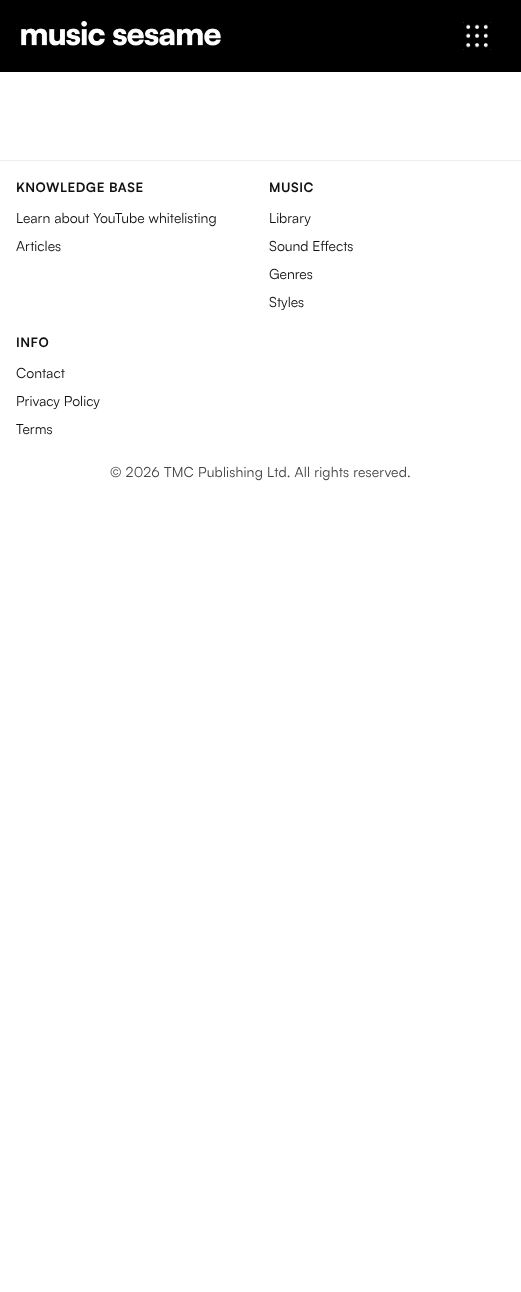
<?xml version="1.0" encoding="UTF-8"?>
<svg xmlns="http://www.w3.org/2000/svg" width="521" height="1292">
    <rect width="100%" height="100%" fill="#FFFFFF"/>
    <rect x="0" y="0" width="521" height="72" fill="#000000"/>
    <image x="21" y="21" width="200" height="25" href="img_01.png"/>
    <image x="463" y="22" width="28" height="28" href="img_02.png"/>
    <rect x="0" y="160" width="521" height="1" fill="#EEEEEE"/>
    <text x="16" y="192" font-family="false" font-size="13" font-weight="700" letter-spacing="0.5" fill="#111111">KNOWLEDGE BASE</text>
    <text x="16" y="223" font-family="false" font-size="14" fill="#111111">Learn about YouTube whitelisting</text>
    <text x="16" y="251" font-family="false" font-size="14" fill="#111111">Articles</text>
    <text x="269" y="192" font-family="false" font-size="13" font-weight="700" letter-spacing="0.5" fill="#111111">MUSIC</text>
    <text x="269" y="223" font-family="false" font-size="14" fill="#111111">Library</text>
    <text x="269" y="251" font-family="false" font-size="14" fill="#111111">Sound Effects</text>
    <text x="269" y="279" font-family="false" font-size="14" fill="#111111">Genres</text>
    <text x="269" y="307" font-family="false" font-size="14" fill="#111111">Styles</text>
    <text x="16" y="347" font-family="false" font-size="13" font-weight="700" letter-spacing="0.5" fill="#111111">INFO</text>
    <text x="16" y="378" font-family="false" font-size="14" fill="#111111">Contact</text>
    <text x="16" y="406" font-family="false" font-size="14" fill="#111111">Privacy Policy</text>
    <text x="16" y="434" font-family="false" font-size="14" fill="#111111">Terms</text>
    <text x="110" y="477" font-family="false" font-size="14" letter-spacing="0.15" fill="#444444">© 2026 TMC Publishing Ltd. All rights reserved.</text>
</svg>
